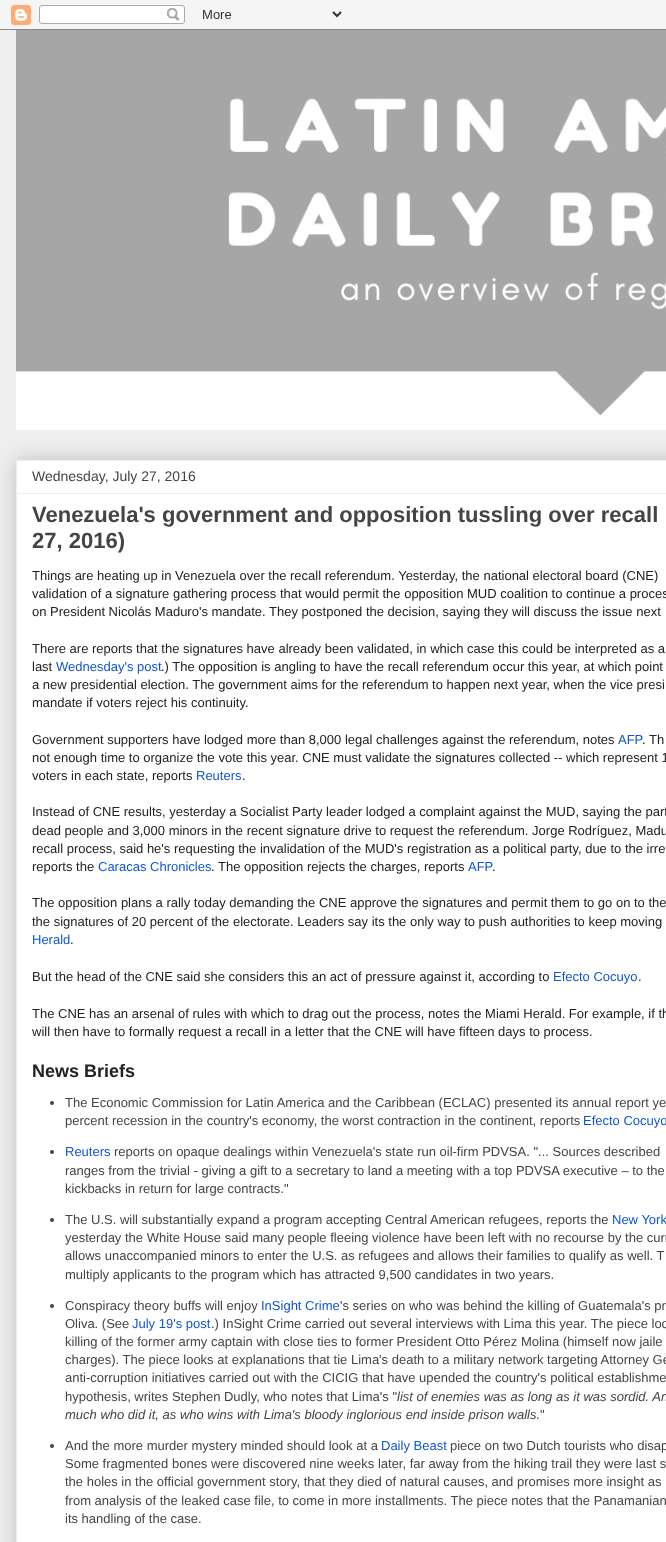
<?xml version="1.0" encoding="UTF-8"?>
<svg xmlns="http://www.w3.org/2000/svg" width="666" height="1542">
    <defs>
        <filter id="blur1" x="-50%" y="-200%" width="200%" height="500%"><feGaussianBlur stdDeviation="10"/></filter>
    </defs>
    <rect width="100%" height="100%" fill="#EEEEEE"/>
    <image x="0" y="0" width="666" height="30" href="img_01.png"/>
    <image x="16" y="30" width="650" height="400" href="img_02.png"/>
    <rect x="16" y="460" width="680" height="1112" fill="#000000" fill-opacity="0.2" filter="url(#blur1)"/>
    <rect x="16.5" y="460.5" width="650" height="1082" fill="#FFFFFF" stroke="#EEEEEE"/>
    <text x="32" y="481" font-family="Liberation Sans" font-size="14" fill="#444444">Wednesday, July 27, 2016</text>
    <rect x="17" y="493" width="649" height="1" fill="#EEEEEE"/>
    <text font-family="Liberation Sans" font-size="22" font-weight="700" fill="#444444">
        <tspan x="32" y="522">Venezuela's government and opposition tussling over recall</tspan>
        <tspan x="32" y="548">27, 2016)</tspan>
    </text>
    <text font-family="Liberation Sans" font-size="13" fill="#222222">
        <tspan x="32" y="580">Things are heating up in Venezuela over the recall referendum. Yesterday, the national electoral board (CNE)</tspan>
        <tspan x="32" y="598">validation of a signature gathering process that would permit the opposition MUD coalition to continue a proces</tspan>
        <tspan x="32" y="616">on President Nicolás Maduro's mandate. They postponed the decision, saying they will discuss the issue next</tspan>
    </text>
    <text font-family="Liberation Sans" font-size="13" fill="#222222">
        <tspan x="32" y="653">There are reports that the signatures have already been validated, in which case this could be interpreted as a</tspan>
        <tspan x="32" y="671">last</tspan>
    </text>
    <text x="56" y="671" font-family="Liberation Sans" font-size="13" fill="#1155CC">Wednesday's post</text>
    <text x="161" y="671" font-family="Liberation Sans" font-size="13" fill="#222222">.) The opposition is angling to have the recall referendum occur this year, at which point</text>
    <text font-family="Liberation Sans" font-size="13" fill="#222222">
        <tspan x="32" y="689">a new presidential election. The government aims for the referendum to happen next year, when the vice presi</tspan>
        <tspan x="32" y="707">mandate if voters reject his continuity.</tspan>
    </text>
    <text x="32" y="744" font-family="Liberation Sans" font-size="13" fill="#222222">Government supporters have lodged more than 8,000 legal challenges against the referendum, notes</text>
    <text x="618" y="744" font-family="Liberation Sans" font-size="13" fill="#1155CC">AFP</text>
    <text x="642" y="744" font-family="Liberation Sans" font-size="13" fill="#222222">. Th</text>
    <text font-family="Liberation Sans" font-size="13" fill="#222222">
        <tspan x="32" y="762">not enough time to organize the vote this year. CNE must validate the signatures collected -- which represent 1</tspan>
        <tspan x="32" y="780">voters in each state, reports</tspan>
    </text>
    <text x="196" y="780" font-family="Liberation Sans" font-size="13" fill="#1155CC">Reuters</text>
    <text x="242" y="780" font-family="Liberation Sans" font-size="13" fill="#222222">.</text>
    <text font-family="Liberation Sans" font-size="13" fill="#222222">
        <tspan x="32" y="816">Instead of CNE results, yesterday a Socialist Party leader lodged a complaint against the MUD, saying the part</tspan>
        <tspan x="32" y="835">dead people and 3,000 minors in the recent signature drive to request the referendum. Jorge Rodríguez, Madu</tspan>
        <tspan x="32" y="853">recall process, said he's requesting the invalidation of the MUD's registration as a political party, due to the irre</tspan>
        <tspan x="32" y="871">reports the</tspan>
    </text>
    <text x="98" y="871" font-family="Liberation Sans" font-size="13" fill="#1155CC">Caracas Chronicles</text>
    <text x="211" y="871" font-family="Liberation Sans" font-size="13" fill="#222222">. The opposition rejects the charges, reports</text>
    <text x="468" y="871" font-family="Liberation Sans" font-size="13" fill="#1155CC">AFP</text>
    <text x="492" y="871" font-family="Liberation Sans" font-size="13" fill="#222222">.</text>
    <text font-family="Liberation Sans" font-size="13" fill="#222222">
        <tspan x="32" y="907">The opposition plans a rally today demanding the CNE approve the signatures and permit them to go on to the</tspan>
        <tspan x="32" y="926">the signatures of 20 percent of the electorate. Leaders say its the only way to push authorities to keep moving</tspan>
    </text>
    <text x="32" y="944" font-family="Liberation Sans" font-size="13" fill="#1155CC">Herald</text>
    <text x="70" y="944" font-family="Liberation Sans" font-size="13" fill="#222222">.</text>
    <text x="32" y="981" font-family="Liberation Sans" font-size="13" fill="#222222">But the head of the CNE said she considers this an act of pressure against it, according to</text>
    <text x="553" y="981" font-family="Liberation Sans" font-size="13" fill="#1155CC">Efecto Cocuyo</text>
    <text x="638" y="981" font-family="Liberation Sans" font-size="13" fill="#222222">.</text>
    <text font-family="Liberation Sans" font-size="13" fill="#222222">
        <tspan x="32" y="1018">The CNE has an arsenal of rules with which to drag out the process, notes the Miami Herald. For example, if th</tspan>
        <tspan x="32" y="1036">will then have to formally request a recall in a letter that the CNE will have fifteen days to process.</tspan>
    </text>
    <text x="32" y="1077" font-family="Liberation Sans" font-size="18" font-weight="700" fill="#222222">News Briefs</text>
    <circle cx="52" cy="1103" r="2" fill="#444444"/>
    <text font-family="Liberation Sans" font-size="13" fill="#444444">
        <tspan x="65" y="1107">The Economic Commission for Latin America and the Caribbean (ECLAC) presented its annual report ye</tspan>
        <tspan x="65" y="1125">percent recession in the country's economy, the worst contraction in the continent, reports</tspan>
    </text>
    <text x="583" y="1125" font-family="Liberation Sans" font-size="13" fill="#1155CC">Efecto Cocuyo</text>
    <circle cx="52" cy="1152" r="2" fill="#444444"/>
    <text x="65" y="1156" font-family="Liberation Sans" font-size="13" fill="#1155CC">Reuters</text>
    <text x="114" y="1156" font-family="Liberation Sans" font-size="13" fill="#444444">reports on opaque dealings within Venezuela's state run oil-firm PDVSA. "... Sources described</text>
    <text font-family="Liberation Sans" font-size="13" fill="#444444">
        <tspan x="65" y="1175">ranges from the trivial - giving a gift to a secretary to land a meeting with a top PDVSA executive – to the</tspan>
        <tspan x="65" y="1193">kickbacks in return for large contracts."</tspan>
    </text>
    <circle cx="52" cy="1220" r="2" fill="#444444"/>
    <text x="65" y="1224" font-family="Liberation Sans" font-size="13" fill="#444444">The U.S. will substantially expand a program accepting Central American refugees, reports the</text>
    <text x="612" y="1224" font-family="Liberation Sans" font-size="13" fill="#1155CC">New York</text>
    <text font-family="Liberation Sans" font-size="13" fill="#444444">
        <tspan x="65" y="1242">yesterday the White House said many people fleeing violence have been left with no recourse by the curr</tspan>
        <tspan x="65" y="1260">allows unaccompanied minors to enter the U.S. as refugees and allows their families to qualify as well. T</tspan>
        <tspan x="65" y="1279">multiply applicants to the program which has attracted 9,500 candidates in two years.</tspan>
    </text>
    <circle cx="52" cy="1306" r="2" fill="#444444"/>
    <text x="65" y="1310" font-family="Liberation Sans" font-size="13" fill="#444444">Conspiracy theory buffs will enjoy</text>
    <text x="261" y="1310" font-family="Liberation Sans" font-size="13" fill="#1155CC">InSight Crime</text>
    <text x="340" y="1310" font-family="Liberation Sans" font-size="13" fill="#444444">'s series on who was behind the killing of Guatemala's pr</text>
    <text x="65" y="1328" font-family="Liberation Sans" font-size="13" fill="#444444">Oliva. (See</text>
    <text x="132" y="1328" font-family="Liberation Sans" font-size="13" fill="#1155CC">July 19's post</text>
    <text x="211" y="1328" font-family="Liberation Sans" font-size="13" fill="#444444">.) InSight Crime carried out several interviews with Lima this year. The piece loo</text>
    <text font-family="Liberation Sans" font-size="13" fill="#444444">
        <tspan x="65" y="1346">killing of the former army captain with close ties to former President Otto Pérez Molina (himself now jaile</tspan>
        <tspan x="65" y="1364">charges). The piece looks at explanations that tie Lima's death to a military network targeting Attorney Ge</tspan>
        <tspan x="65" y="1382">anti-corruption initiatives carried out with the CICIG that have upended the country's political establishme</tspan>
        <tspan x="65" y="1401">hypothesis, writes Stephen Dudly, who notes that Lima's "</tspan>
    </text>
    <text x="397" y="1401" font-family="Liberation Sans" font-size="13" font-style="italic" fill="#444444">list of enemies was as long as it was sordid. An</text>
    <text x="65" y="1419" font-family="Liberation Sans" font-size="13" font-style="italic" fill="#444444">much who did it, as who wins with Lima's bloody inglorious end inside prison walls.</text>
    <text x="540" y="1419" font-family="Liberation Sans" font-size="13" fill="#444444">"</text>
    <circle cx="52" cy="1446" r="2" fill="#444444"/>
    <text x="65" y="1450" font-family="Liberation Sans" font-size="13" fill="#444444">And the more murder mystery minded should look at a</text>
    <text x="381" y="1450" font-family="Liberation Sans" font-size="13" fill="#1155CC">Daily Beast</text>
    <text x="450" y="1450" font-family="Liberation Sans" font-size="13" fill="#444444">piece on two Dutch tourists who disap</text>
    <text font-family="Liberation Sans" font-size="13" fill="#444444">
        <tspan x="65" y="1468">Some fragmented bones were discovered nine weeks later, far away from the hiking trail they were last s</tspan>
        <tspan x="65" y="1486">the holes in the official government story, that they died of natural causes, and promises more insight as</tspan>
        <tspan x="65" y="1505">from analysis of the leaked case file, to come in more installments. The piece notes that the Panamanian</tspan>
        <tspan x="65" y="1523">its handling of the case.</tspan>
    </text>
</svg>
